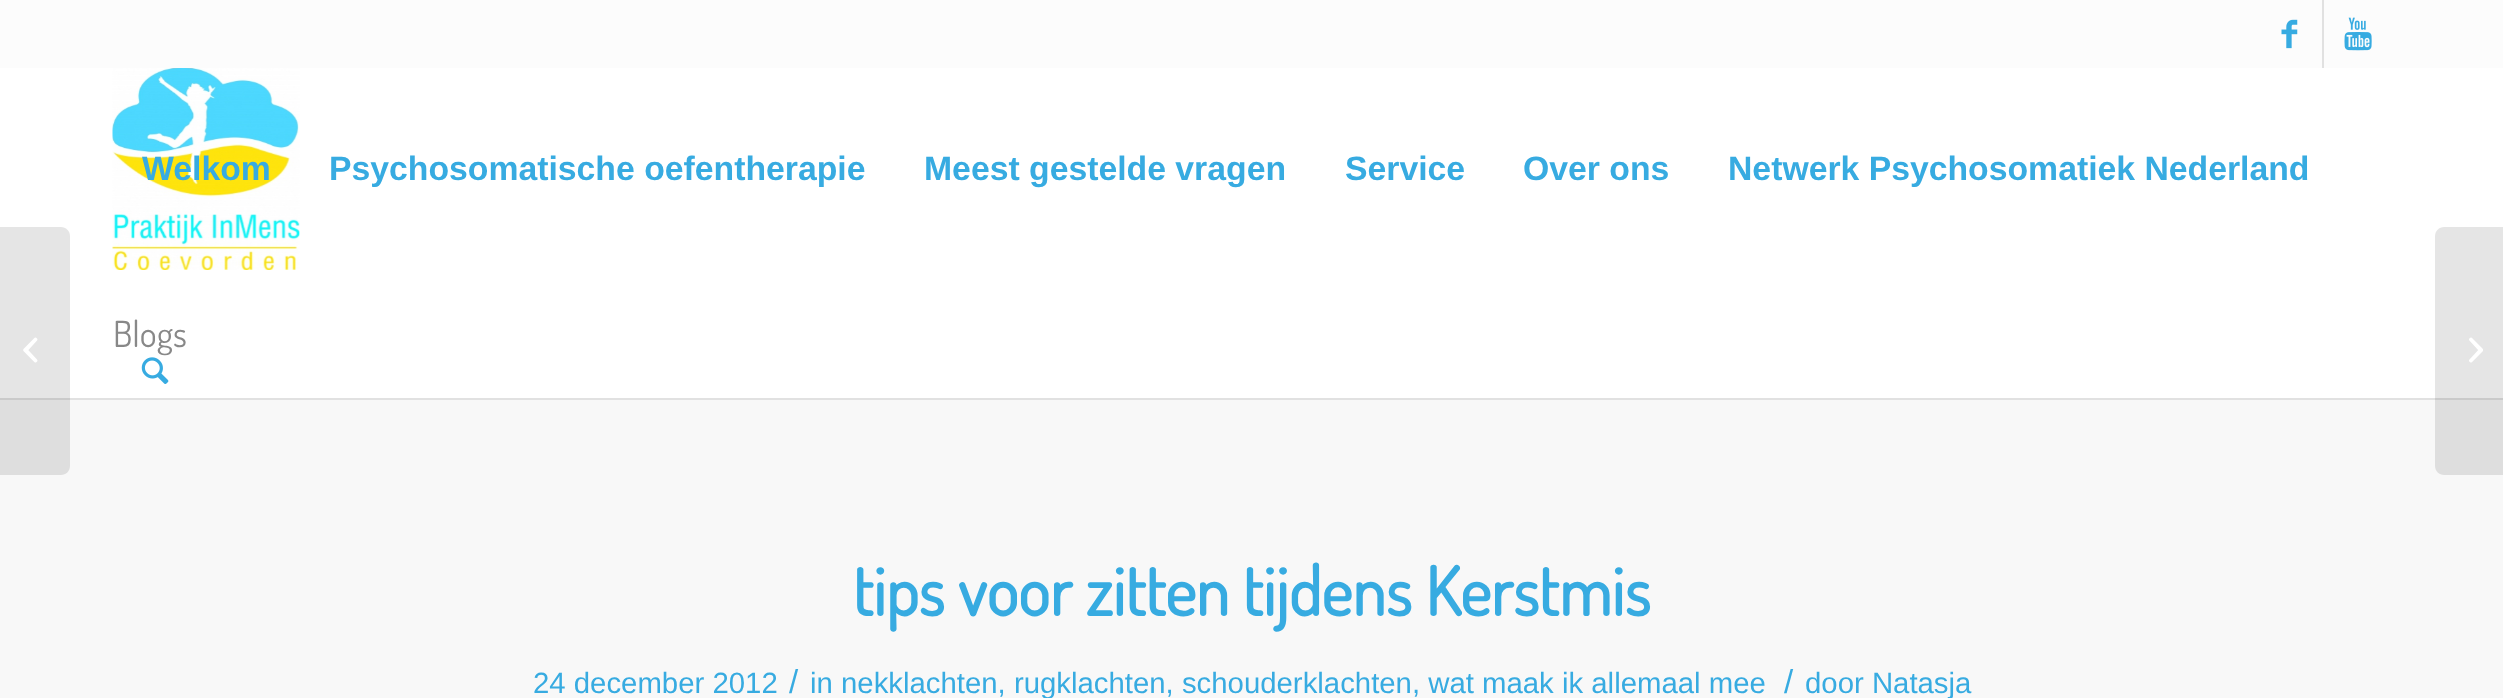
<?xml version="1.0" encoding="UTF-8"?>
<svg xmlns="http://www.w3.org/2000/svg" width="2503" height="698">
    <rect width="100%" height="100%" fill="#FFFFFF"/>
    <rect x="0" y="0" width="2503" height="68" fill="#FCFCFC"/>
    <rect x="2322" y="0" width="2" height="68" fill="#E1E1E1"/>
    <image x="2281" y="19" width="17" height="30" href="img_01.png"/>
    <image x="2344" y="17" width="28" height="34" href="img_02.png"/>
    <image x="112" y="68" width="188" height="202" href="img_03.png"/>
    <text x="142" y="180" font-family="Liberation Sans" font-size="33.75" font-weight="700" fill="#37ABE1">Welkom</text>
    <text x="329" y="180" font-family="Liberation Sans" font-size="33.75" font-weight="700" fill="#37ABE1">Psychosomatische oefentherapie</text>
    <text x="924" y="180" font-family="Liberation Sans" font-size="33.75" font-weight="700" fill="#37ABE1">Meest gestelde vragen</text>
    <text x="1345" y="180" font-family="Liberation Sans" font-size="33.75" font-weight="700" fill="#37ABE1">Service</text>
    <text x="1523" y="180" font-family="Liberation Sans" font-size="33.75" font-weight="700" fill="#37ABE1">Over ons</text>
    <text x="1728" y="180" font-family="Liberation Sans" font-size="33.75" font-weight="700" fill="#37ABE1">Netwerk Psychosomatiek Nederland</text>
    <image x="141" y="357" width="28" height="27" href="img_04.png"/>
    <rect x="0" y="400" width="2503" height="298" fill="#F8F8F8"/>
    <rect x="0" y="398" width="2503" height="2" fill="#E1E1E1"/>
    <path d="M 0 227 H 61 C 66 227 70 231 70 236 V 466 C 70 471 66 475 61 475 H 0 Z" fill="#000000" fill-opacity="0.1"/>
    <image x="23" y="337" width="15" height="26" href="img_05.png"/>
    <text x="113" y="347" font-family="Dosis" font-size="36" fill="#888888">Blogs</text>
    <text x="853" y="616" font-family="Dosis" font-size="67.5" font-weight="700" fill="#37ABE1">tips voor zitten tijdens Kerstmis</text>
    <text x="533" y="693" font-family="Liberation Sans" font-size="29.35" fill="#37ABE1">24 december 2012</text>
    <text x="789" y="693" font-family="Liberation Sans" font-size="33" fill="#37ABE1">/</text>
    <text x="810" y="693" font-family="Liberation Sans" font-size="29.35" fill="#37ABE1">in nekklachten, rugklachten, schouderklachten, wat maak ik allemaal mee</text>
    <text x="1784" y="693" font-family="Liberation Sans" font-size="33" fill="#37ABE1">/</text>
    <text x="1805" y="693" font-family="Liberation Sans" font-size="29.35" fill="#37ABE1">door Natasja</text>
    <path d="M 2444 227 H 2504 V 475 H 2444 C 2439 475 2435 471 2435 466 V 236 C 2435 231 2439 227 2444 227 Z" fill="#000000" fill-opacity="0.1"/>
    <image x="2469" y="337" width="14" height="26" href="img_06.png"/>
</svg>
